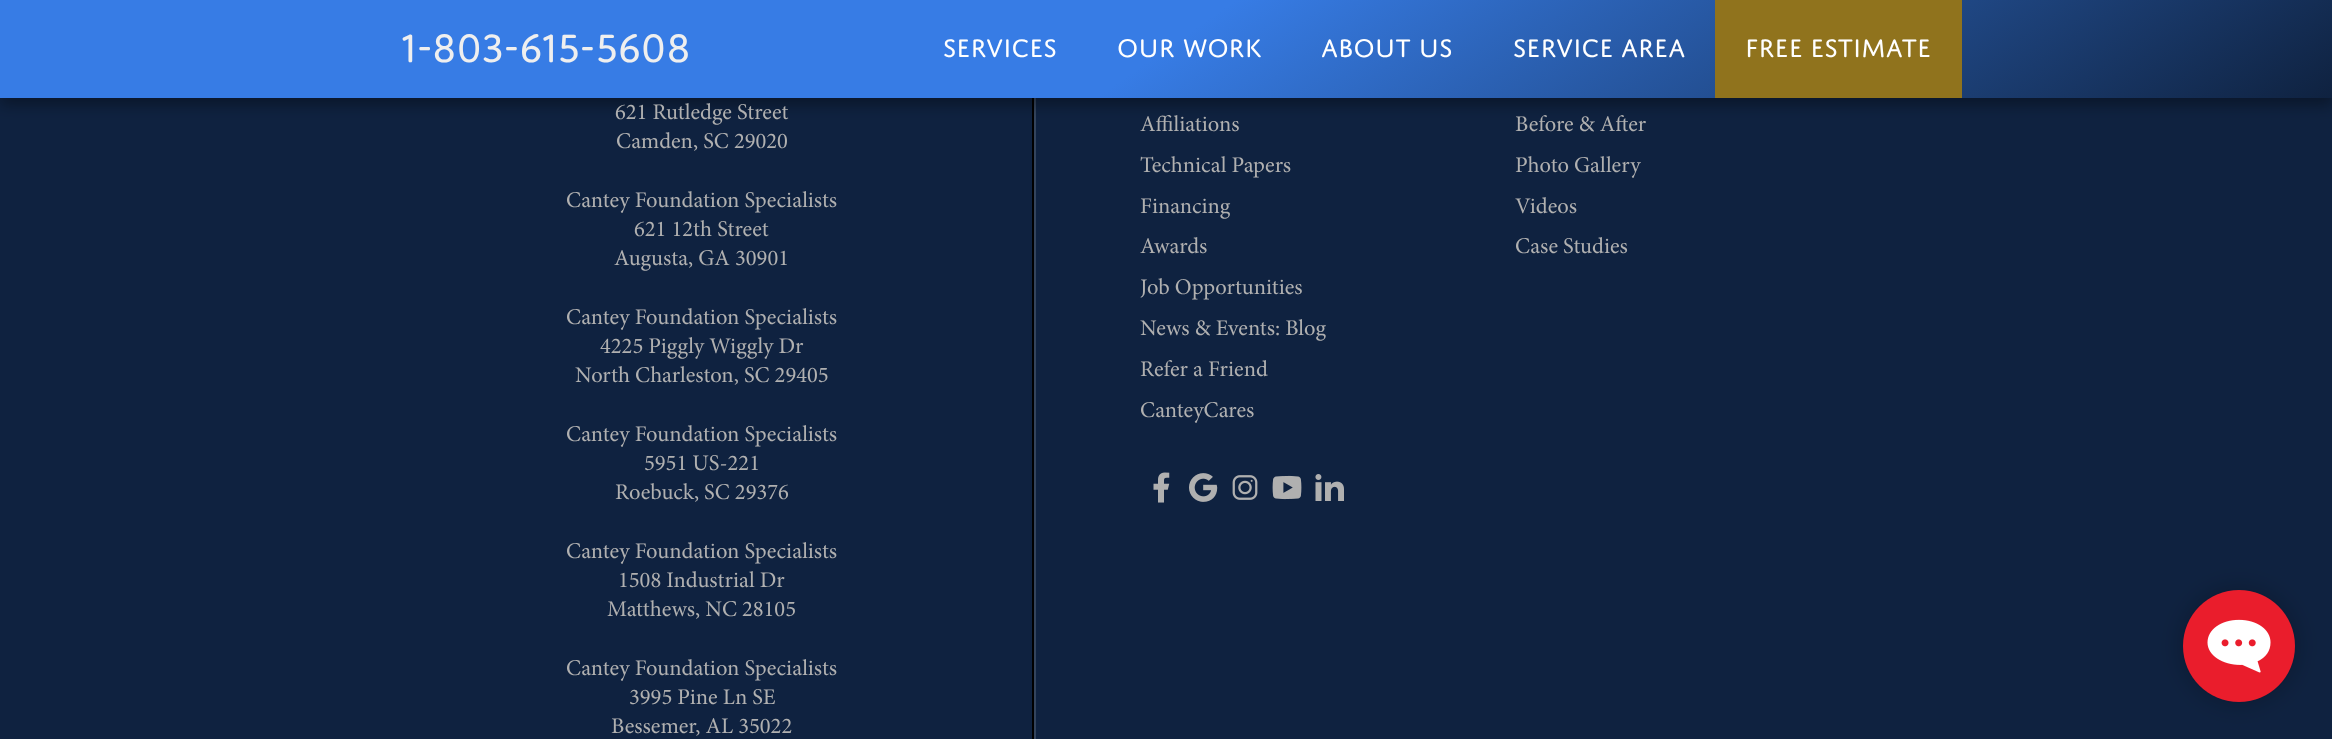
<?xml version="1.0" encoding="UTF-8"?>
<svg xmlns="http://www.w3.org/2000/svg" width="2332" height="739">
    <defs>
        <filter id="blur1" x="-50%" y="-200%" width="200%" height="500%"><feGaussianBlur stdDeviation="7.5"/></filter>
        <linearGradient id="g1" gradientUnits="userSpaceOnUse" x1="1573" y1="629" x2="760" y2="-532"><stop offset="0" stop-color="#0F2240"/><stop offset="0.5" stop-color="#377CE5"/></linearGradient>
        <filter id="blur2" x="-50%" y="-200%" width="200%" height="500%"><feGaussianBlur stdDeviation="11"/></filter>
    </defs>
    <rect width="100%" height="100%" fill="#0F2240"/>
    <rect x="1032" y="98" width="2" height="641" fill="#000000"/>
    <rect x="1034" y="98" width="2" height="641" fill="#33445D"/>
    <rect x="0" y="8" width="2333" height="97" fill="#000000" fill-opacity="0.35" filter="url(#blur1)"/>
    <rect x="0" y="0" width="2332" height="98" fill="url(#g1)"/>
    <text x="401" y="62" font-family="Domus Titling" font-size="42" fill="#EFEFEF">1-803-615-5608</text>
    <text x="943" y="57" font-family="Domus Titling" font-size="27" fill="#FFFFFF">SERVICES</text>
    <text x="1117" y="57" font-family="Domus Titling" font-size="27" fill="#FFFFFF">OUR WORK</text>
    <text x="1321" y="57" font-family="Domus Titling" font-size="27" fill="#FFFFFF">ABOUT US</text>
    <text x="1513" y="57" font-family="Domus Titling" font-size="27" fill="#FFFFFF">SERVICE AREA</text>
    <rect x="1715" y="0" width="247" height="98" fill="#90731D"/>
    <text x="1745" y="57" font-family="Domus Titling" font-size="27" fill="#FFFFFF">FREE ESTIMATE</text>
    <text x="615" y="119" font-family="Minion" font-size="22.5" fill="#B0B0B0">621 Rutledge Street</text>
    <text x="616" y="148" font-family="Minion" font-size="22.5" fill="#B0B0B0">Camden, SC 29020</text>
    <text x="566" y="207" font-family="Minion" font-size="22.5" fill="#B0B0B0">Cantey Foundation Specialists</text>
    <text x="634" y="236" font-family="Minion" font-size="22.5" fill="#B0B0B0">621 12th Street</text>
    <text x="614" y="265" font-family="Minion" font-size="22.5" fill="#B0B0B0">Augusta, GA 30901</text>
    <text x="566" y="324" font-family="Minion" font-size="22.5" fill="#B0B0B0">Cantey Foundation Specialists</text>
    <text x="600" y="353" font-family="Minion" font-size="22.5" fill="#B0B0B0">4225 Piggly Wiggly Dr</text>
    <text x="575" y="382" font-family="Minion" font-size="22.5" fill="#B0B0B0">North Charleston, SC 29405</text>
    <text x="566" y="441" font-family="Minion" font-size="22.5" fill="#B0B0B0">Cantey Foundation Specialists</text>
    <text x="644" y="470" font-family="Minion" font-size="22.5" fill="#B0B0B0">5951 US-221</text>
    <text x="615" y="499" font-family="Minion" font-size="22.5" fill="#B0B0B0">Roebuck, SC 29376</text>
    <text x="566" y="558" font-family="Minion" font-size="22.5" fill="#B0B0B0">Cantey Foundation Specialists</text>
    <text x="618" y="587" font-family="Minion" font-size="22.5" fill="#B0B0B0">1508 Industrial Dr</text>
    <text x="607" y="616" font-family="Minion" font-size="22.5" fill="#B0B0B0">Matthews, NC 28105</text>
    <text x="566" y="675" font-family="Minion" font-size="22.5" fill="#B0B0B0">Cantey Foundation Specialists</text>
    <text x="629" y="704" font-family="Minion" font-size="22.5" fill="#B0B0B0">3995 Pine Ln SE</text>
    <text x="611" y="733" font-family="Minion" font-size="22.5" fill="#B0B0B0">Bessemer, AL 35022</text>
    <text font-family="Minion" font-size="22.5" fill="#B0B0B0">
        <tspan x="1140" y="131">Affiliations</tspan>
        <tspan x="1140" y="172">Technical Papers</tspan>
        <tspan x="1140" y="213">Financing</tspan>
        <tspan x="1140" y="253">Awards</tspan>
        <tspan x="1140" y="294">Job Opportunities</tspan>
        <tspan x="1140" y="335">News &amp; Events: Blog</tspan>
        <tspan x="1140" y="376">Refer a Friend</tspan>
        <tspan x="1140" y="417">CanteyCares</tspan>
    </text>
    <text font-family="Minion" font-size="22.5" fill="#B0B0B0">
        <tspan x="1515" y="131">Before &amp; After</tspan>
        <tspan x="1515" y="172">Photo Gallery</tspan>
        <tspan x="1515" y="213">Videos</tspan>
        <tspan x="1515" y="253">Case Studies</tspan>
    </text>
    <image x="1153" y="472" width="17" height="31" href="img_01.png"/>
    <image x="1189" y="473" width="29" height="29" href="img_02.png"/>
    <image x="1232" y="475" width="26" height="25" href="img_03.png"/>
    <image x="1272" y="475" width="30" height="25" href="img_04.png"/>
    <image x="1315" y="474" width="29" height="27" href="img_05.png"/>
    <rect x="2180" y="587" width="118" height="118" rx="59" fill="#000000" fill-opacity="0.2" filter="url(#blur2)"/>
    <image x="2183" y="590" width="112" height="112" href="img_06.png"/>
</svg>
